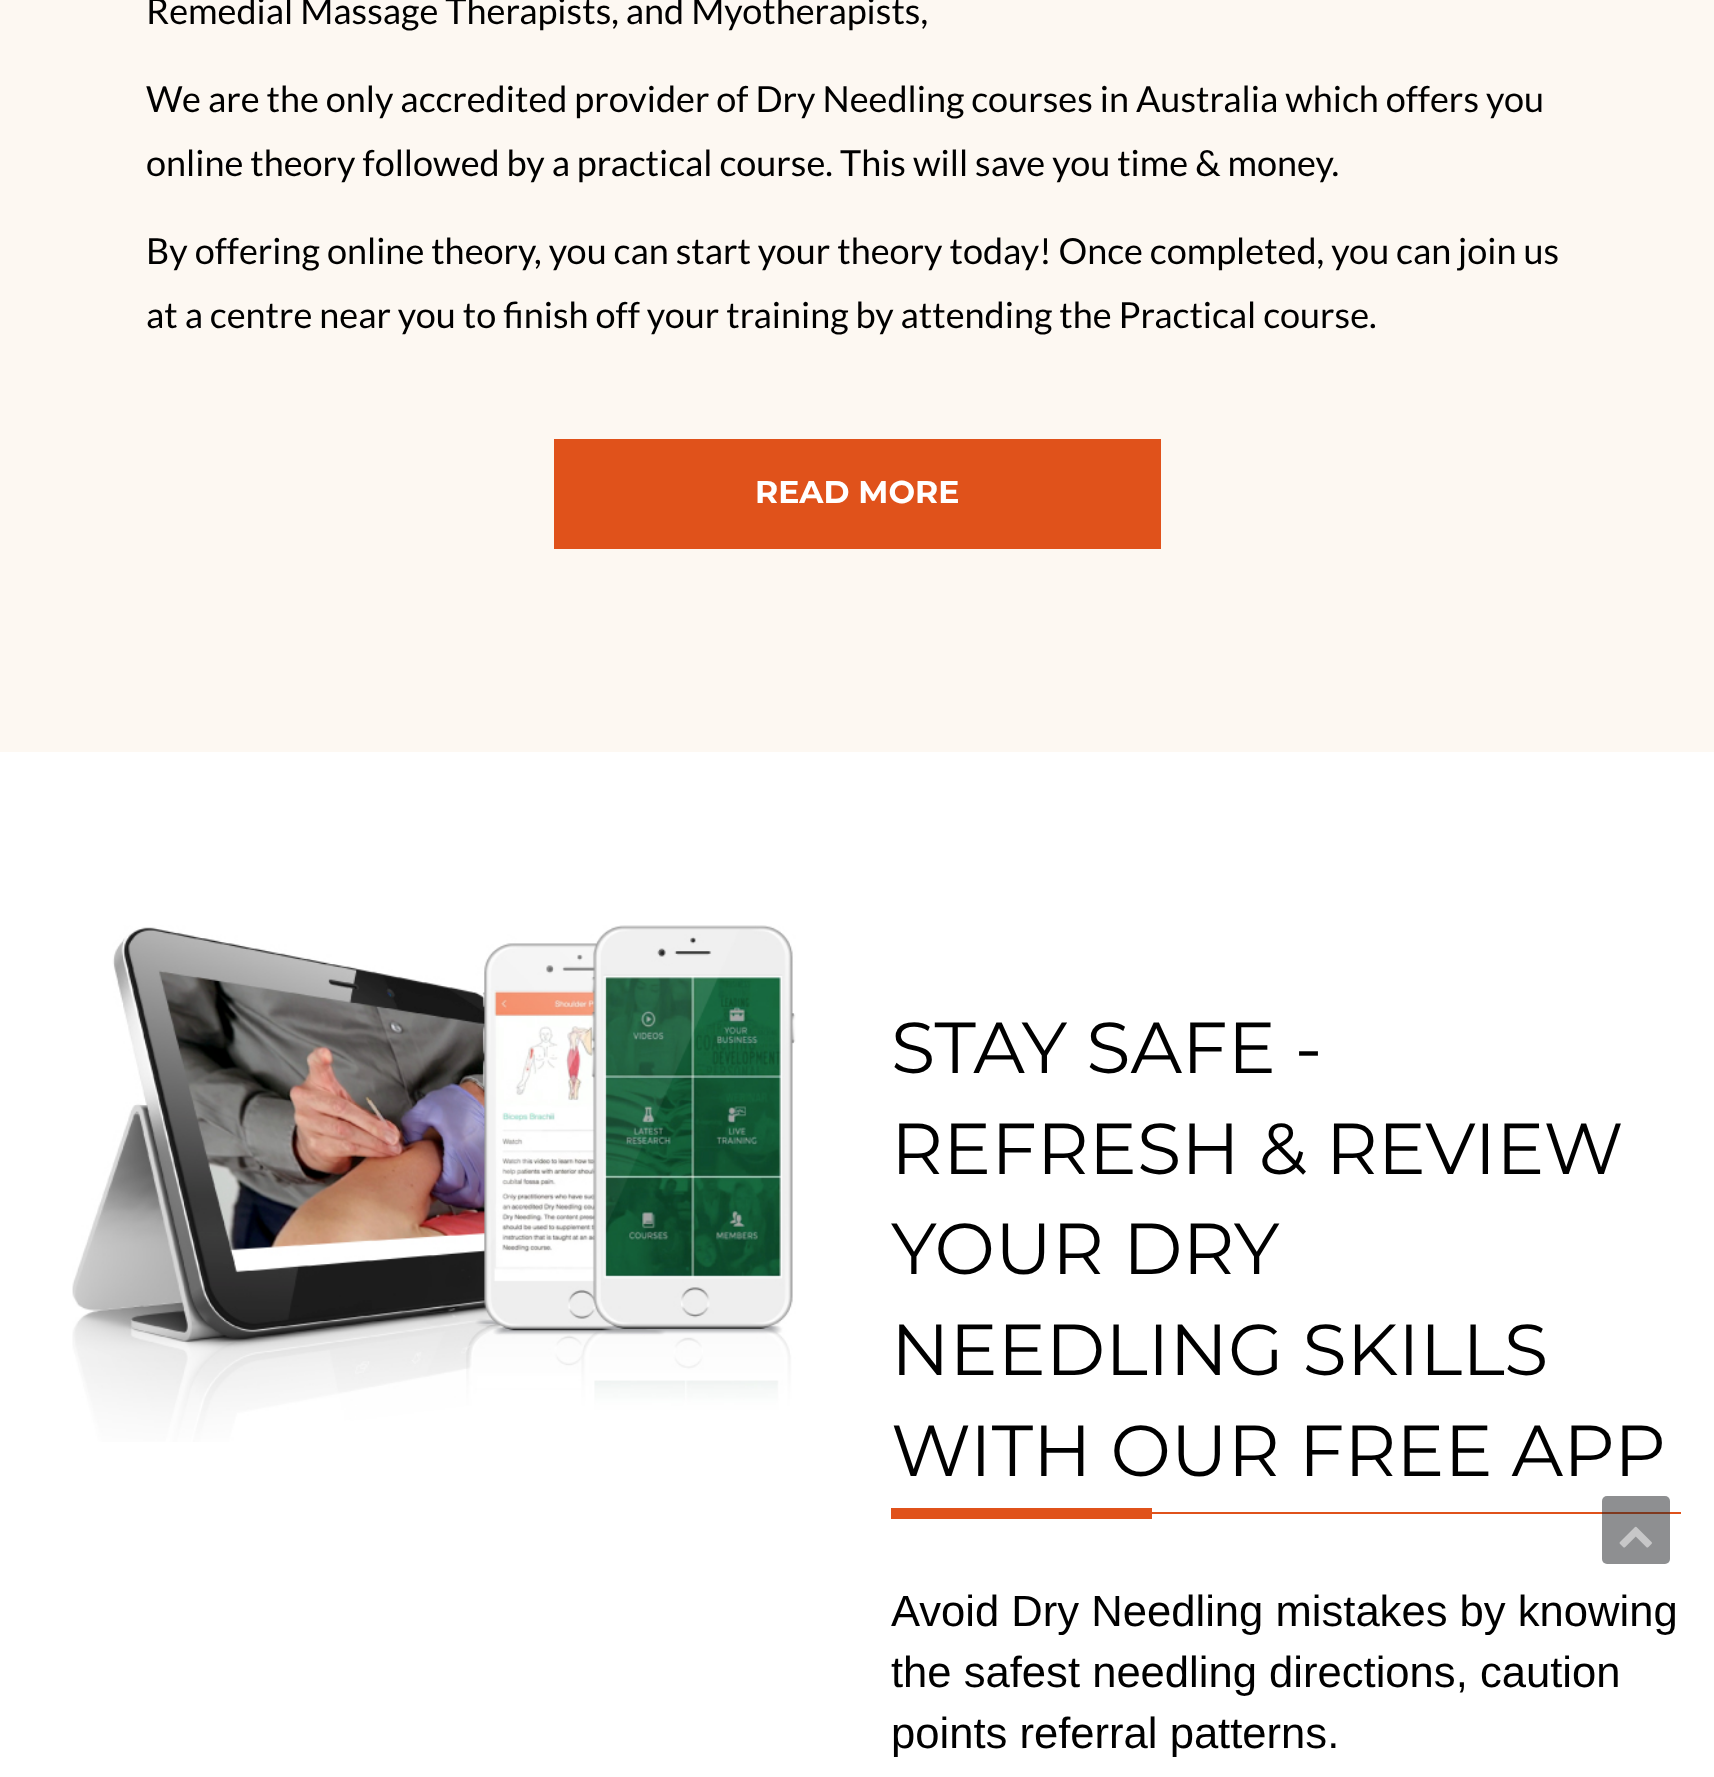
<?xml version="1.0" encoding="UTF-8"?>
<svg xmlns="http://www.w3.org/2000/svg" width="1714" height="1777">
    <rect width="100%" height="100%" fill="#FFFFFF"/>
    <rect x="0" y="0" width="1714" height="752" fill="#FDF8F2"/>
    <text x="146" y="24" font-family="Lato" font-size="36" fill="#000000">Remedial Massage Therapists, and Myotherapists,</text>
    <text font-family="Lato" font-size="36" fill="#000000">
        <tspan x="146" y="112">We are the only accredited provider of Dry Needling courses in Australia which offers you</tspan>
        <tspan x="146" y="176">online theory followed by a practical course. This will save you time &amp; money.</tspan>
    </text>
    <text font-family="Lato" font-size="36" fill="#000000">
        <tspan x="146" y="264">By offering online theory, you can start your theory today! Once completed, you can join us</tspan>
        <tspan x="146" y="328">at a centre near you to finish off your training by attending the Practical course.</tspan>
    </text>
    <rect x="554" y="439" width="607" height="110" fill="#E0521B"/>
    <text x="755" y="503" font-family="Montserrat" font-size="31.5" font-weight="700" fill="#FFFFFF">READ MORE</text>
    <image x="72" y="925" width="724" height="517" href="img_01.png"/>
    <text font-family="Montserrat" font-size="72" fill="#000000">
        <tspan x="891" y="1073">STAY SAFE -</tspan>
        <tspan x="891" y="1174">REFRESH &amp; REVIEW</tspan>
        <tspan x="891" y="1274">YOUR DRY</tspan>
        <tspan x="891" y="1375">NEEDLING SKILLS</tspan>
        <tspan x="891" y="1476">WITH OUR FREE APP</tspan>
    </text>
    <rect x="891" y="1508" width="261" height="11" fill="#E0521B"/>
    <rect x="1152" y="1512" width="529" height="2" fill="#E0521B"/>
    <text font-family="Liberation Sans" font-size="43.6" fill="#000000">
        <tspan x="891" y="1626">Avoid Dry Needling mistakes by knowing</tspan>
        <tspan x="891" y="1687">the safest needling directions, caution</tspan>
        <tspan x="891" y="1748">points referral patterns.</tspan>
    </text>
    <rect x="1602" y="1496" width="68" height="68" rx="5" fill="#1D2023" fill-opacity="0.5"/>
    <image x="1619" y="1526" width="33" height="22" href="img_02.png"/>
</svg>
